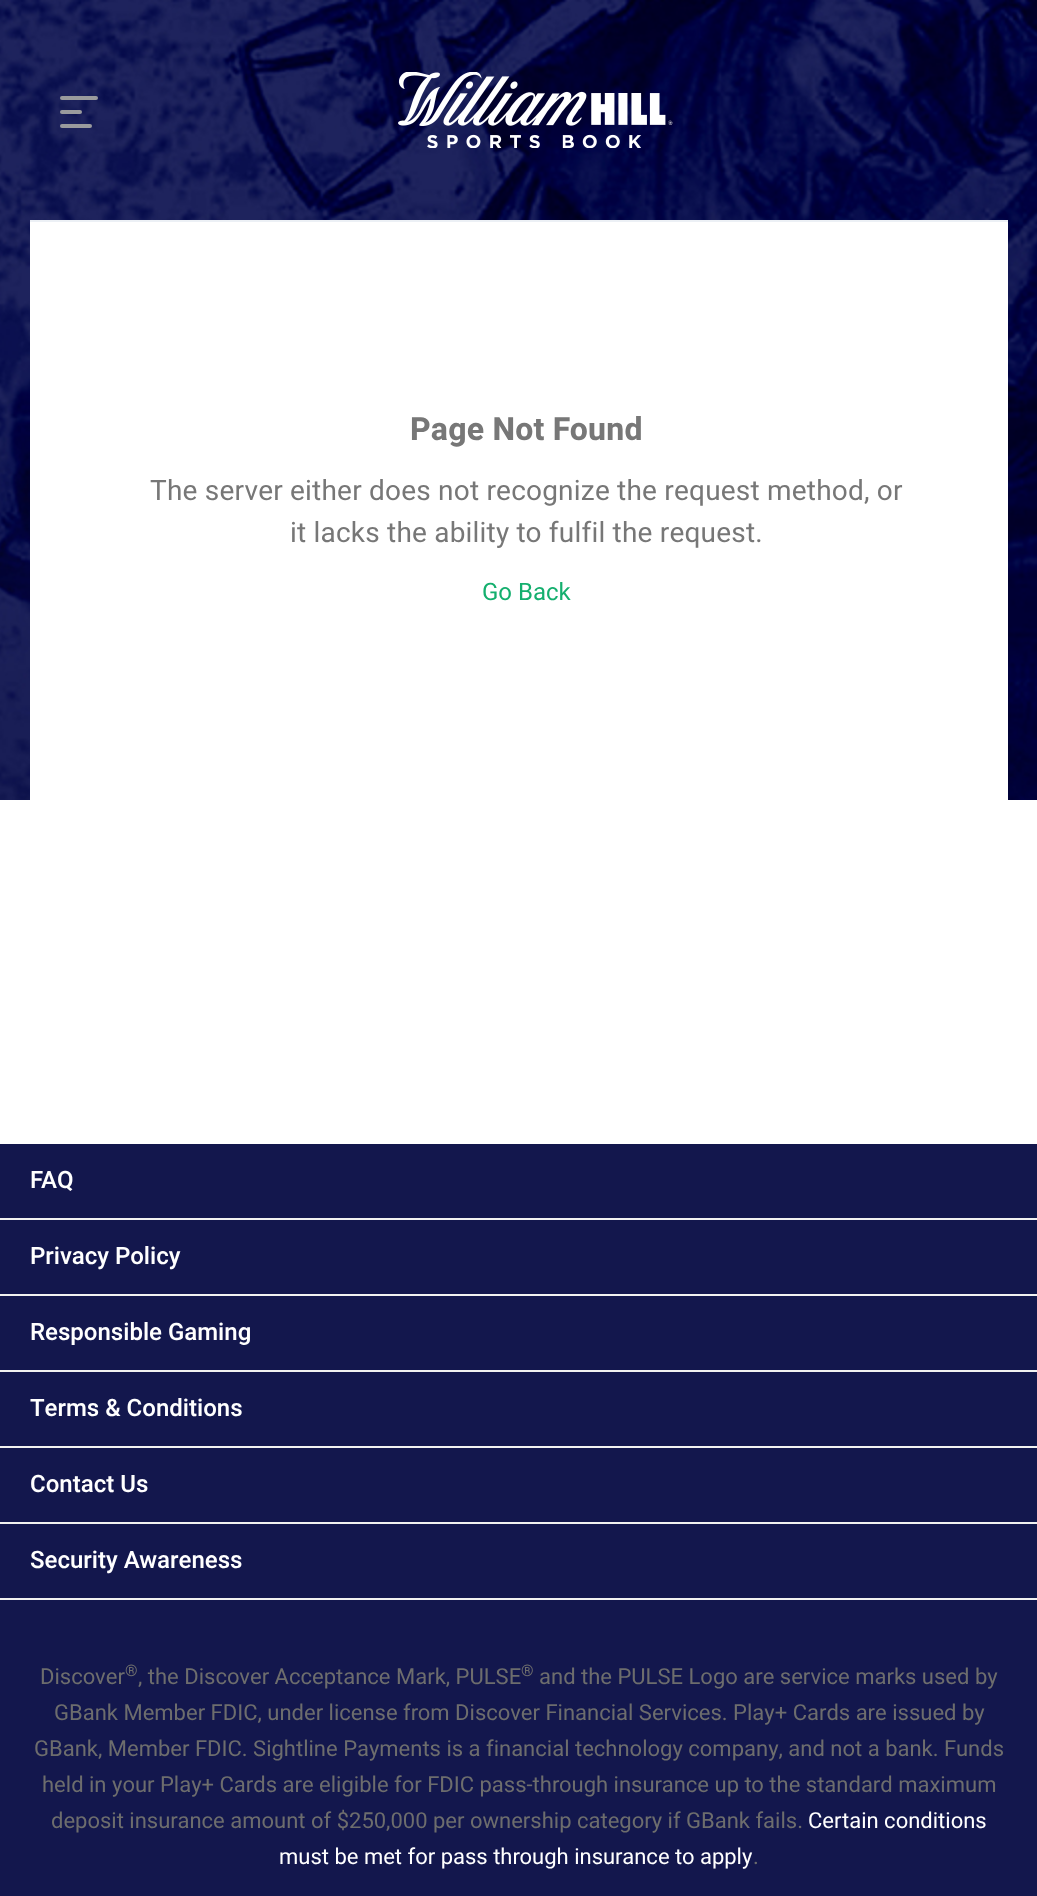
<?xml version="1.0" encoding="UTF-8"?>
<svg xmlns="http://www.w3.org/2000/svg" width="1037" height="1896">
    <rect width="100%" height="100%" fill="#FFFFFF"/>
    <image x="0" y="0" width="1037" height="800" href="img_01.png"/>
    <rect x="60" y="96" width="38" height="4" rx="2" fill="#9A9B9D"/>
    <rect x="60" y="110" width="22" height="4" rx="2" fill="#9A9B9D"/>
    <rect x="60" y="124" width="32" height="4" rx="2" fill="#9A9B9D"/>
    <image x="398" y="72" width="275" height="76" href="img_02.png"/>
    <rect x="30" y="222" width="978" height="578" fill="#FFFFFF"/>
    <rect x="30" y="220" width="978" height="2" fill="#ECF0F5"/>
    <text x="410" y="440" font-family="Heebo" font-size="32" font-weight="700" letter-spacing="0.25" fill="#777777">Page Not Found</text>
    <text x="150" y="500" font-family="Heebo" font-size="28" letter-spacing="0.2" fill="#777777">The server either does not recognize the request method, or</text>
    <text x="290" y="542" font-family="Heebo" font-size="28" letter-spacing="0.2" fill="#777777">it lacks the ability to fulfil the request.</text>
    <text x="482" y="600" font-family="Heebo" font-size="24" fill="#14AF6E">Go Back</text>
    <rect x="0" y="1144" width="1037" height="752" fill="#13174D"/>
    <text x="30" y="1188" font-family="Heebo" font-size="24" font-weight="500" fill="#FFFFFF">FAQ</text>
    <rect x="0" y="1218" width="1037" height="2" fill="#F1F1F1"/>
    <text x="30" y="1264" font-family="Heebo" font-size="24" font-weight="500" fill="#FFFFFF">Privacy Policy</text>
    <rect x="0" y="1294" width="1037" height="2" fill="#F1F1F1"/>
    <text x="30" y="1340" font-family="Heebo" font-size="24" font-weight="500" fill="#FFFFFF">Responsible Gaming</text>
    <rect x="0" y="1370" width="1037" height="2" fill="#F1F1F1"/>
    <text x="30" y="1416" font-family="Heebo" font-size="24" font-weight="500" fill="#FFFFFF">Terms &amp; Conditions</text>
    <rect x="0" y="1446" width="1037" height="2" fill="#F1F1F1"/>
    <text x="30" y="1492" font-family="Heebo" font-size="24" font-weight="500" fill="#FFFFFF">Contact Us</text>
    <rect x="0" y="1522" width="1037" height="2" fill="#F1F1F1"/>
    <rect x="0" y="1598" width="1037" height="2" fill="#F1F1F1"/>
    <text x="30" y="1568" font-family="Heebo" font-size="24" font-weight="500" fill="#FFFFFF">Security Awareness</text>
    <text x="40" y="1684" font-family="Heebo" font-size="22" fill="#6D6D6D">Discover</text>
    <text x="125" y="1676" font-family="Heebo" font-size="16" fill="#6D6D6D">®</text>
    <text x="138" y="1684" font-family="Heebo" font-size="22" fill="#6D6D6D">, the Discover Acceptance Mark, PULSE</text>
    <text x="521" y="1676" font-family="Heebo" font-size="16" fill="#6D6D6D">®</text>
    <text x="539" y="1684" font-family="Heebo" font-size="22" fill="#6D6D6D">and the PULSE Logo are service marks used by</text>
    <text x="54" y="1720" font-family="Heebo" font-size="22" fill="#6D6D6D">GBank Member FDIC, under license from Discover Financial Services. Play+ Cards are issued by</text>
    <text x="34" y="1756" font-family="Heebo" font-size="22" fill="#6D6D6D">GBank, Member FDIC. Sightline Payments is a financial technology company, and not a bank. Funds</text>
    <text x="42" y="1792" font-family="Heebo" font-size="22" fill="#6D6D6D">held in your Play+ Cards are eligible for FDIC pass-through insurance up to the standard maximum</text>
    <text x="51" y="1828" font-family="Heebo" font-size="22" fill="#6D6D6D">deposit insurance amount of $250,000 per ownership category if GBank fails.</text>
    <text x="808" y="1828" font-family="Heebo" font-size="22" fill="#FFFFFF">Certain conditions</text>
    <text x="279" y="1864" font-family="Heebo" font-size="22" fill="#FFFFFF">must be met for pass through insurance to apply</text>
    <text x="753" y="1864" font-family="Heebo" font-size="22" fill="#6D6D6D">.</text>
</svg>
